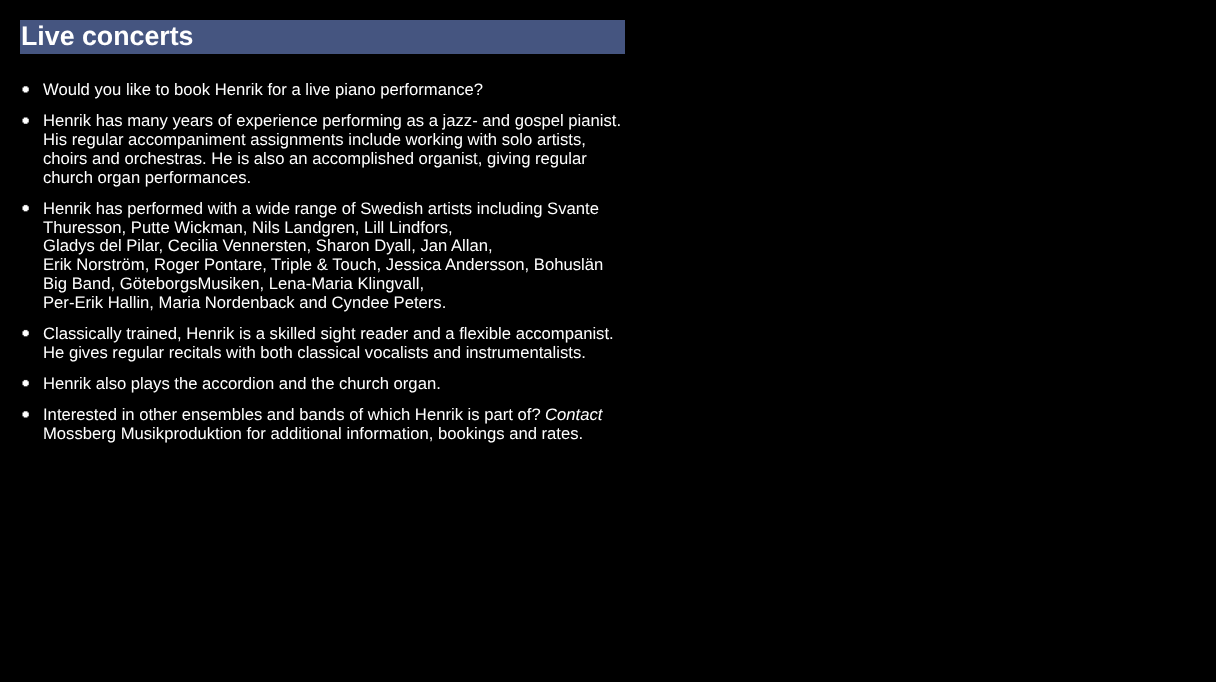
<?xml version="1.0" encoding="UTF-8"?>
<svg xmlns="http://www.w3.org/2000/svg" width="1216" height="682">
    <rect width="100%" height="100%" fill="#000000"/>
    <rect x="20" y="20" width="605" height="34" fill="#455580"/>
    <text x="21" y="45" font-family="Liberation Sans" font-size="26.75" font-weight="700" fill="#FFFFFF">Live concerts</text>
    <image x="22" y="86" width="7" height="7" href="img_01.png"/>
    <text x="43" y="95" font-family="Liberation Sans" font-size="16.65" fill="#FFFFFF">Would you like to book Henrik for a live piano performance?</text>
    <image x="22" y="117" width="7" height="7" href="img_02.png"/>
    <text font-family="Liberation Sans" font-size="16.65" fill="#FFFFFF">
        <tspan x="43" y="126">Henrik has many years of experience performing as a jazz- and gospel pianist.</tspan>
        <tspan x="43" y="145">His regular accompaniment assignments include working with solo artists,</tspan>
        <tspan x="43" y="164">choirs and orchestras. He is also an accomplished organist, giving regular</tspan>
        <tspan x="43" y="183">church organ performances.</tspan>
    </text>
    <image x="22" y="204" width="7" height="8" href="img_03.png"/>
    <text font-family="Liberation Sans" font-size="16.65" fill="#FFFFFF">
        <tspan x="43" y="214">Henrik has performed with a wide range of Swedish artists including Svante</tspan>
        <tspan x="43" y="233">Thuresson, Putte Wickman, Nils Landgren, Lill Lindfors,</tspan>
        <tspan x="43" y="251">Gladys del Pilar, Cecilia Vennersten, Sharon Dyall, Jan Allan,</tspan>
        <tspan x="43" y="270">Erik Norström, Roger Pontare, Triple &amp; Touch, Jessica Andersson, Bohuslän</tspan>
        <tspan x="43" y="289">Big Band, GöteborgsMusiken, Lena-Maria Klingvall,</tspan>
        <tspan x="43" y="308">Per-Erik Hallin, Maria Nordenback and Cyndee Peters.</tspan>
    </text>
    <image x="22" y="329" width="7" height="8" href="img_03.png"/>
    <text font-family="Liberation Sans" font-size="16.65" fill="#FFFFFF">
        <tspan x="43" y="339">Classically trained, Henrik is a skilled sight reader and a flexible accompanist.</tspan>
        <tspan x="43" y="358">He gives regular recitals with both classical vocalists and instrumentalists.</tspan>
    </text>
    <image x="22" y="379" width="7" height="8" href="img_03.png"/>
    <text x="43" y="389" font-family="Liberation Sans" font-size="16.65" fill="#FFFFFF">Henrik also plays the accordion and the church organ.</text>
    <image x="22" y="411" width="7" height="7" href="img_01.png"/>
    <text x="43" y="420" font-family="Liberation Sans" font-size="16.65" fill="#FFFFFF">Interested in other ensembles and bands of which Henrik is part of?</text>
    <text x="545" y="420" font-family="Liberation Sans" font-size="16.65" font-style="italic" fill="#FFFFFF">Contact</text>
    <text x="43" y="439" font-family="Liberation Sans" font-size="16.65" fill="#FFFFFF">Mossberg Musikproduktion for additional information, bookings and rates.</text>
</svg>
